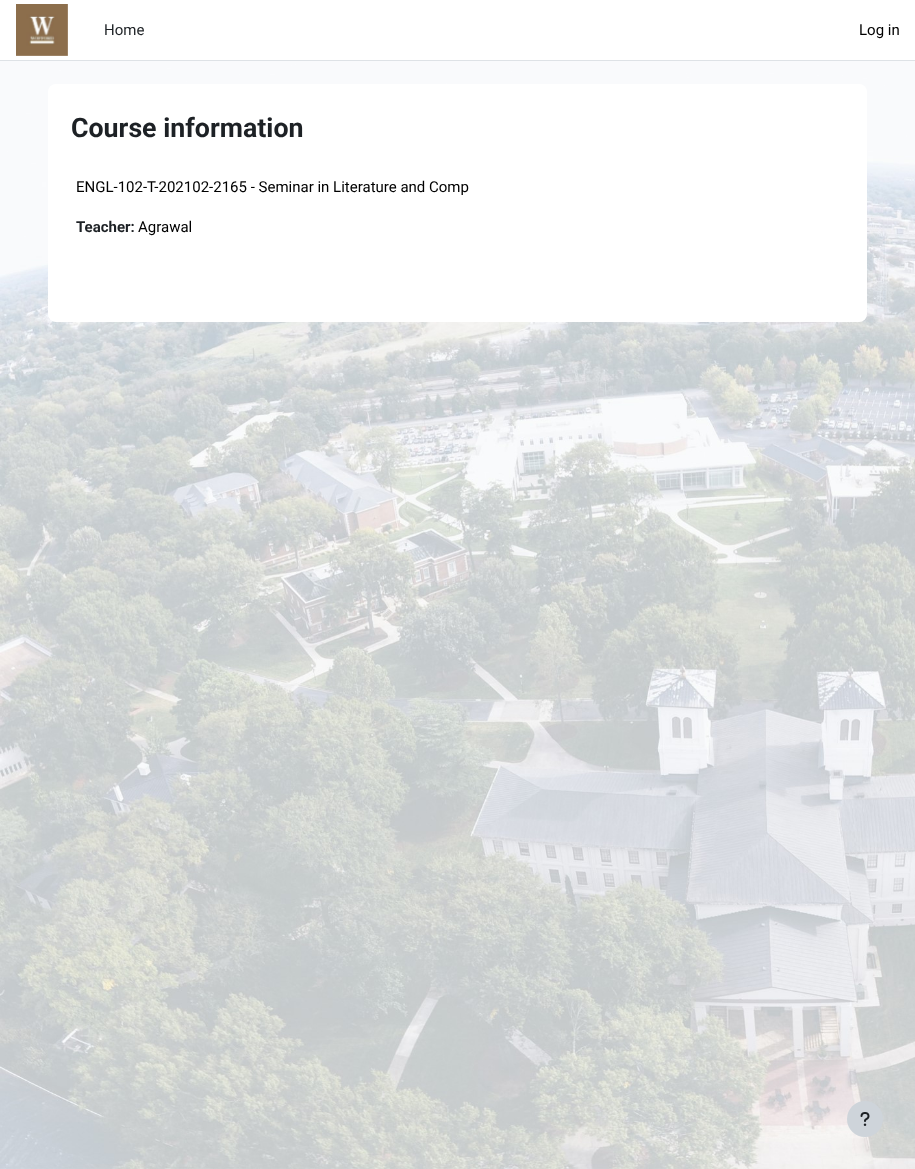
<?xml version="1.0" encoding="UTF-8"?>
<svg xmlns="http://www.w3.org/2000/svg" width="915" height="1169">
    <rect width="100%" height="100%" fill="#FFFFFF"/>
    <image x="0" y="61" width="915" height="1108" href="img_01.png"/>
    <rect x="0" y="60" width="915" height="1" fill="#DEE2E6"/>
    <image x="16" y="4" width="52" height="52" href="img_02.png"/>
    <text x="104" y="35" font-family="Roboto" font-size="15" fill="#1D2125">Home</text>
    <text x="859" y="35" font-family="Roboto" font-size="15" fill="#000000">Log in</text>
    <rect x="48" y="84" width="819" height="238" rx="8" fill="#FFFFFF"/>
    <text x="71" y="137" font-family="Roboto" font-size="26.75" font-weight="700" fill="#1D2125">Course information</text>
    <text x="76" y="192" font-family="Roboto" font-size="15" fill="#000000">ENGL-102-T-202102-2165 - Seminar in Literature and Comp</text>
    <text x="76" y="232" font-family="Roboto" font-size="15" font-weight="700" fill="#1D2125">Teacher:</text>
    <text x="138" y="232" font-family="Roboto" font-size="15" fill="#000000">Agrawal</text>
    <circle cx="865" cy="1119" r="18" fill="#CED4DA"/>
    <image x="860" y="1112" width="10" height="14" href="img_03.png"/>
</svg>
